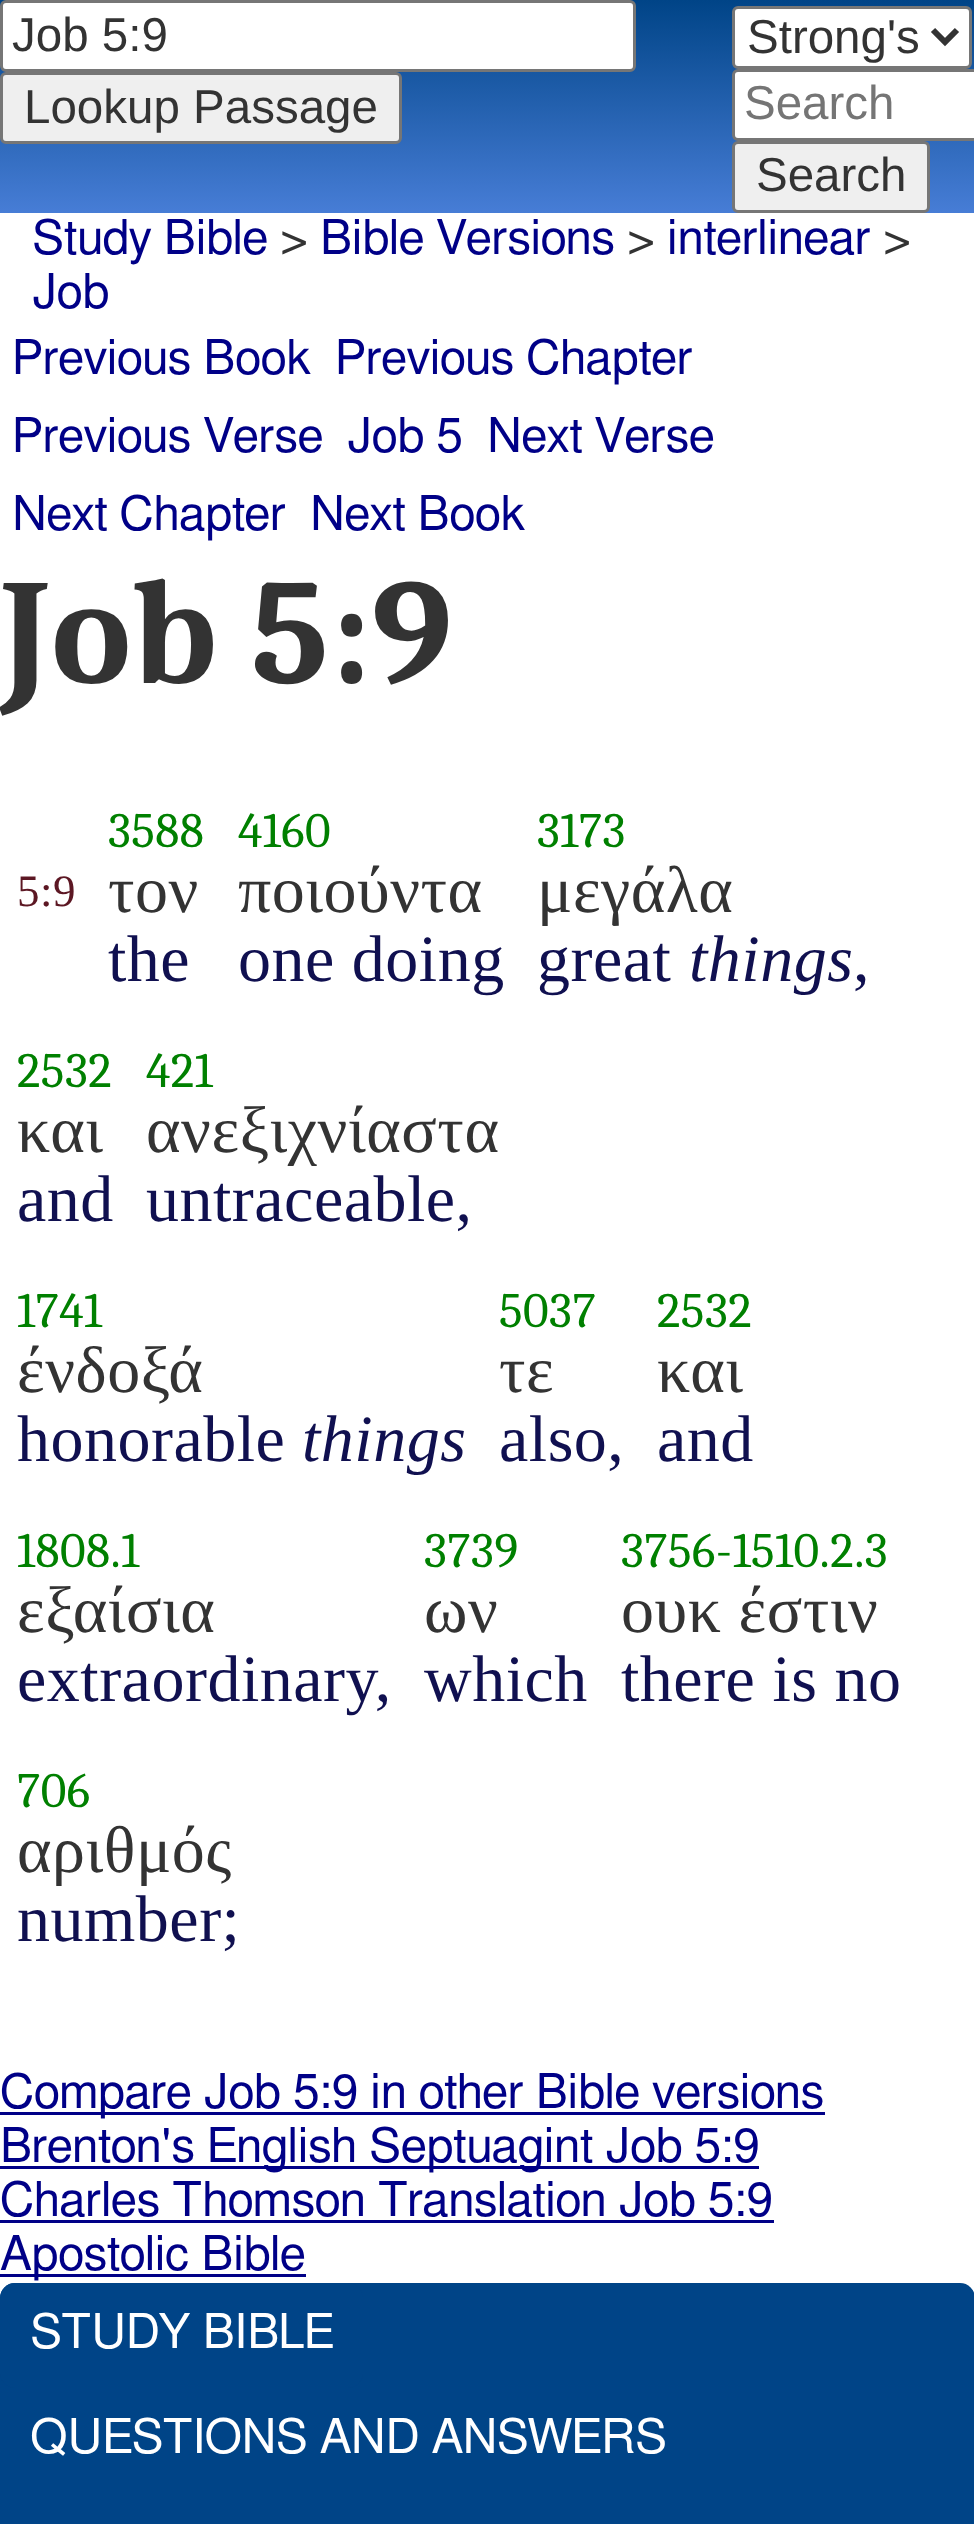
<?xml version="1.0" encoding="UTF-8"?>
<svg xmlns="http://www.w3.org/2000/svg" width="974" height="2524">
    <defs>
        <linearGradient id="g1" gradientUnits="userSpaceOnUse" x1="488" y1="0" x2="488" y2="213"><stop offset="0" stop-color="#004487"/><stop offset="1" stop-color="#477DD6"/></linearGradient>
    </defs>
    <rect width="100%" height="100%" fill="#FFFFFF"/>
    <rect x="0" y="0" width="974" height="213" fill="url(#g1)"/>
    <rect x="1.5" y="1.5" width="633" height="69" rx="4.5" fill="#FFFFFF" stroke="#767676" stroke-width="3"/>
    <text x="12" y="51" font-family="Liberation Sans" font-size="47.5" fill="#333333">Job 5:9</text>
    <rect x="1.5" y="73.5" width="399" height="69" rx="4.5" fill="#EFEFEF" stroke="#767676" stroke-width="3"/>
    <text x="24" y="123" font-family="Liberation Sans" font-size="47.5" fill="#333333">Lookup Passage</text>
    <rect x="733.5" y="7.5" width="237" height="60" rx="4.5" fill="#FFFFFF" stroke="#767676" stroke-width="3"/>
    <path d="M 933 30 L 945 42 L 957 30" fill="none" stroke="#333333" stroke-width="6"/>
    <text x="747" y="53" font-family="Liberation Sans" font-size="47.5" fill="#333333">Strong's</text>
    <rect x="733.5" y="70.5" width="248" height="69" rx="4.5" fill="#FFFFFF" stroke="#767676" stroke-width="3"/>
    <text x="744" y="119" font-family="Liberation Sans" font-size="47.5" fill="#757575">Search</text>
    <rect x="733.5" y="142.5" width="195" height="69" rx="4.5" fill="#EFEFEF" stroke="#767676" stroke-width="3"/>
    <text x="756" y="191" font-family="Liberation Sans" font-size="47.5" fill="#333333">Search</text>
    <text x="32" y="254" font-family="FreeSans" font-size="48" fill="#000087">Study Bible</text>
    <text x="280" y="254" font-family="FreeSans" font-size="48" fill="#333333">&gt;</text>
    <text x="320" y="254" font-family="FreeSans" font-size="48" fill="#000087">Bible Versions</text>
    <text x="627" y="254" font-family="FreeSans" font-size="48" fill="#333333">&gt;</text>
    <text x="667" y="254" font-family="FreeSans" font-size="48" fill="#000087">interlinear</text>
    <text x="883" y="254" font-family="FreeSans" font-size="48" fill="#333333">&gt;</text>
    <text x="32" y="308" font-family="FreeSans" font-size="48" fill="#000087">Job</text>
    <text x="12" y="374" font-family="FreeSans" font-size="48" fill="#000087">Previous Book</text>
    <text x="335" y="374" font-family="FreeSans" font-size="48" fill="#000087">Previous Chapter</text>
    <text x="12" y="452" font-family="FreeSans" font-size="48" fill="#000087">Previous Verse</text>
    <text x="347" y="452" font-family="FreeSans" font-size="48" fill="#000087">Job 5</text>
    <text x="487" y="452" font-family="FreeSans" font-size="48" fill="#000087">Next Verse</text>
    <text x="12" y="530" font-family="FreeSans" font-size="48" fill="#000087">Next Chapter</text>
    <text x="310" y="530" font-family="FreeSans" font-size="48" fill="#000087">Next Book</text>
    <text x="0" y="683" font-family="Caladea" font-size="150" font-weight="700" letter-spacing="0.5" fill="#333333">Job 5:9</text>
    <text x="17" y="906" font-family="Liberation Serif" font-size="45" letter-spacing="0.5" fill="#5C1723">5:9</text>
    <text x="108" y="847" font-family="Caladea" font-size="49.5" letter-spacing="0.5" fill="#008000">3588</text>
    <text x="108" y="912" font-family="Liberation Serif" font-size="66" letter-spacing="0.5" fill="#333333">τον</text>
    <text x="108" y="981" font-family="Liberation Serif" font-size="66" letter-spacing="0.5" fill="#101050">the</text>
    <text x="238" y="847" font-family="Caladea" font-size="49.5" letter-spacing="0.5" fill="#008000">4160</text>
    <text x="238" y="912" font-family="Liberation Serif" font-size="66" letter-spacing="0.5" fill="#333333">ποιούντα</text>
    <text x="238" y="981" font-family="Liberation Serif" font-size="66" letter-spacing="0.5" fill="#101050">one doing</text>
    <text x="537" y="847" font-family="Caladea" font-size="49.5" letter-spacing="0.5" fill="#008000">3173</text>
    <text x="537" y="912" font-family="Liberation Serif" font-size="66" letter-spacing="0.5" fill="#333333">μεγάλα</text>
    <text x="537" y="981" font-family="Liberation Serif" font-size="66" letter-spacing="0.5" fill="#101050">great</text>
    <text x="689" y="981" font-family="Liberation Serif" font-size="66" font-style="italic" letter-spacing="0.5" fill="#101050">things</text>
    <text x="853" y="981" font-family="Liberation Serif" font-size="66" letter-spacing="0.5" fill="#101050">,</text>
    <text x="17" y="1087" font-family="Caladea" font-size="49.5" letter-spacing="0.5" fill="#008000">2532</text>
    <text x="17" y="1152" font-family="Liberation Serif" font-size="66" letter-spacing="0.5" fill="#333333">και</text>
    <text x="17" y="1221" font-family="Liberation Serif" font-size="66" letter-spacing="0.5" fill="#101050">and</text>
    <text x="146" y="1087" font-family="Caladea" font-size="49.5" letter-spacing="0.5" fill="#008000">421</text>
    <text x="146" y="1152" font-family="Liberation Serif" font-size="66" letter-spacing="0.5" fill="#333333">ανεξιχνίαστα</text>
    <text x="146" y="1221" font-family="Liberation Serif" font-size="66" letter-spacing="0.5" fill="#101050">untraceable,</text>
    <text x="17" y="1327" font-family="Caladea" font-size="49.5" letter-spacing="0.5" fill="#008000">1741</text>
    <text x="17" y="1392" font-family="Liberation Serif" font-size="66" letter-spacing="0.5" fill="#333333">ένδοξά</text>
    <text x="17" y="1461" font-family="Liberation Serif" font-size="66" letter-spacing="0.5" fill="#101050">honorable</text>
    <text x="302" y="1461" font-family="Liberation Serif" font-size="66" font-style="italic" letter-spacing="0.5" fill="#101050">things</text>
    <text x="499" y="1327" font-family="Caladea" font-size="49.5" letter-spacing="0.5" fill="#008000">5037</text>
    <text x="499" y="1392" font-family="Liberation Serif" font-size="66" letter-spacing="0.5" fill="#333333">τε</text>
    <text x="499" y="1461" font-family="Liberation Serif" font-size="66" letter-spacing="0.5" fill="#101050">also,</text>
    <text x="657" y="1327" font-family="Caladea" font-size="49.5" letter-spacing="0.5" fill="#008000">2532</text>
    <text x="657" y="1392" font-family="Liberation Serif" font-size="66" letter-spacing="0.5" fill="#333333">και</text>
    <text x="657" y="1461" font-family="Liberation Serif" font-size="66" letter-spacing="0.5" fill="#101050">and</text>
    <text x="17" y="1567" font-family="Caladea" font-size="49.5" letter-spacing="0.5" fill="#008000">1808.1</text>
    <text x="17" y="1632" font-family="Liberation Serif" font-size="66" letter-spacing="0.5" fill="#333333">εξαίσια</text>
    <text x="17" y="1701" font-family="Liberation Serif" font-size="66" letter-spacing="0.5" fill="#101050">extraordinary,</text>
    <text x="424" y="1567" font-family="Caladea" font-size="49.5" letter-spacing="0.5" fill="#008000">3739</text>
    <text x="424" y="1632" font-family="Liberation Serif" font-size="66" letter-spacing="0.5" fill="#333333">ων</text>
    <text x="424" y="1701" font-family="Liberation Serif" font-size="66" letter-spacing="0.5" fill="#101050">which</text>
    <text x="621" y="1567" font-family="Caladea" font-size="49.5" letter-spacing="0.5" fill="#008000">3756-1510.2.3</text>
    <text x="621" y="1632" font-family="Liberation Serif" font-size="66" letter-spacing="0.5" fill="#333333">ουκ έστιν</text>
    <text x="621" y="1701" font-family="Liberation Serif" font-size="66" letter-spacing="0.5" fill="#101050">there is no</text>
    <text x="17" y="1807" font-family="Caladea" font-size="49.5" letter-spacing="0.5" fill="#008000">706</text>
    <text x="17" y="1872" font-family="Liberation Serif" font-size="66" letter-spacing="0.5" fill="#333333">αριθμός</text>
    <text x="17" y="1941" font-family="Liberation Serif" font-size="66" letter-spacing="0.5" fill="#101050">number;</text>
    <rect x="0" y="2112" width="825" height="3" fill="#000087"/>
    <text x="0" y="2108" font-family="FreeSans" font-size="48" fill="#000087">Compare Job 5:9 in other Bible versions</text>
    <rect x="0" y="2166" width="759" height="3" fill="#000087"/>
    <text font-family="FreeSans" font-size="48" fill="#000087">
        <tspan x="0" y="2162">Brenton's English Septuagint Job 5:9</tspan>
        <tspan x="0" y="2216">Charles Thomson Translation Job 5:9</tspan>
    </text>
    <rect x="0" y="2220" width="774" height="3" fill="#000087"/>
    <rect x="0" y="2274" width="306" height="3" fill="#000087"/>
    <text x="0" y="2270" font-family="FreeSans" font-size="48" fill="#000087">Apostolic Bible</text>
    <rect x="0" y="2283" width="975" height="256" rx="15" fill="#004487"/>
    <rect x="0" y="2283" width="363" height="105" rx="15" fill="#004487"/>
    <text x="30" y="2348" font-family="FreeSans" font-size="48" fill="#FFFFFF">STUDY BIBLE</text>
    <text x="30" y="2453" font-family="FreeSans" font-size="48" fill="#FFFFFF">QUESTIONS AND ANSWERS</text>
</svg>
